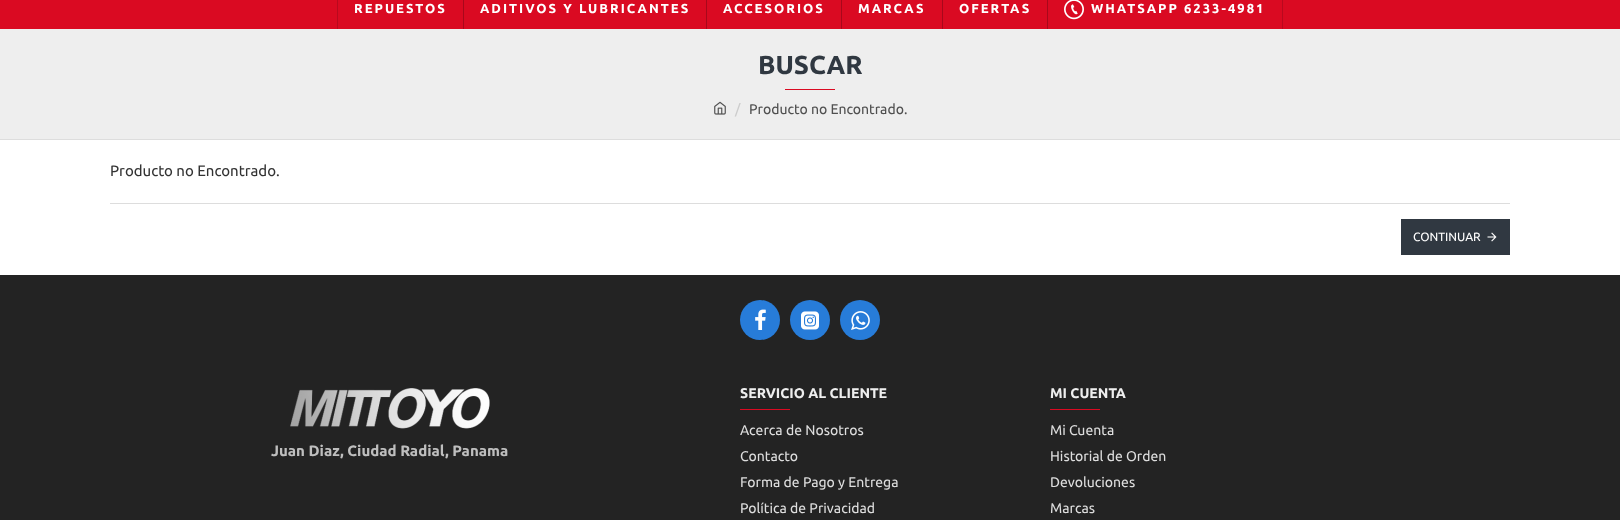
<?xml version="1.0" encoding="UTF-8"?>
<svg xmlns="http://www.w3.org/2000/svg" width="1620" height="520">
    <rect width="100%" height="100%" fill="#FFFFFF"/>
    <rect x="0" y="0" width="1620" height="29" fill="#DA0A22"/>
    <rect x="1282" y="0" width="1" height="29" fill="#B9091E"/>
    <rect x="337" y="0" width="1" height="29" fill="#B9091E"/>
    <text x="354" y="13" font-family="Ubuntu" font-size="13" font-weight="700" letter-spacing="2" fill="#FFFFFF">REPUESTOS</text>
    <rect x="463" y="0" width="1" height="29" fill="#A8081B"/>
    <text x="480" y="13" font-family="Ubuntu" font-size="13" font-weight="700" letter-spacing="2" fill="#FFFFFF">ADITIVOS Y LUBRICANTES</text>
    <rect x="706" y="0" width="1" height="29" fill="#A8081B"/>
    <text x="723" y="13" font-family="Ubuntu" font-size="13" font-weight="700" letter-spacing="2" fill="#FFFFFF">ACCESORIOS</text>
    <rect x="841" y="0" width="1" height="29" fill="#A8081B"/>
    <text x="858" y="13" font-family="Ubuntu" font-size="13" font-weight="700" letter-spacing="2" fill="#FFFFFF">MARCAS</text>
    <rect x="942" y="0" width="1" height="29" fill="#A8081B"/>
    <text x="959" y="13" font-family="Ubuntu" font-size="13" font-weight="700" letter-spacing="2" fill="#FFFFFF">OFERTAS</text>
    <rect x="1047" y="0" width="1" height="29" fill="#A8081B"/>
    <image x="1064" y="0" width="20" height="20" href="img_01.png"/>
    <text x="1091" y="13" font-family="Ubuntu" font-size="13" font-weight="700" letter-spacing="2" fill="#FFFFFF">WHATSAPP 6233-4981</text>
    <rect x="0" y="29" width="1620" height="110" fill="#EEEEEE"/>
    <text x="758" y="74" font-family="Ubuntu" font-size="26" font-weight="700" fill="#303841">BUSCAR</text>
    <rect x="785" y="89" width="50" height="1" fill="#DA0A22"/>
    <rect x="0" y="139" width="1620" height="1" fill="#DDDDDD"/>
    <image x="714" y="101" width="12" height="14" href="img_02.png"/>
    <text x="735" y="114" font-family="Ubuntu" font-size="14" fill="#CCCCCC">/</text>
    <text x="749" y="114" font-family="Ubuntu" font-size="14" fill="#505050">Producto no Encontrado.</text>
    <text x="110" y="176" font-family="Ubuntu" font-size="15" fill="#333333">Producto no Encontrado.</text>
    <rect x="110" y="203" width="1400" height="1" fill="#DDDDDD"/>
    <rect x="1401" y="219" width="109" height="36" fill="#303841"/>
    <text x="1413" y="241" font-family="Ubuntu" font-size="12" fill="#FFFFFF">CONTINUAR</text>
    <image x="1487" y="232" width="10" height="10" href="img_03.png"/>
    <rect x="0" y="275" width="1620" height="245" fill="#232323"/>
    <circle cx="760" cy="320" r="20" fill="#277CD9"/>
    <image x="755" y="309" width="11" height="21" href="img_04.png"/>
    <circle cx="810" cy="320" r="20" fill="#277CD9"/>
    <image x="801" y="311" width="18" height="19" href="img_05.png"/>
    <circle cx="860" cy="320" r="20" fill="#277CD9"/>
    <image x="851" y="311" width="19" height="19" href="img_06.png"/>
    <image x="290" y="388" width="200" height="41" href="img_07.png"/>
    <text x="271" y="456" font-family="Ubuntu" font-size="15" font-weight="700" fill="#BEBEBE">Juan Diaz, Ciudad Radial, Panama</text>
    <text x="740" y="398" font-family="Ubuntu" font-size="14" font-weight="700" fill="#EEEEEE">SERVICIO AL CLIENTE</text>
    <rect x="740" y="409" width="50" height="1" fill="#DA0A22"/>
    <text font-family="Ubuntu" font-size="14" fill="#DDDDDD">
        <tspan x="740" y="435">Acerca de Nosotros</tspan>
        <tspan x="740" y="461">Contacto</tspan>
        <tspan x="740" y="487">Forma de Pago y Entrega</tspan>
        <tspan x="740" y="513">Política de Privacidad</tspan>
    </text>
    <text x="1050" y="398" font-family="Ubuntu" font-size="14" font-weight="700" fill="#EEEEEE">MI CUENTA</text>
    <rect x="1050" y="409" width="50" height="1" fill="#DA0A22"/>
    <text font-family="Ubuntu" font-size="14" fill="#DDDDDD">
        <tspan x="1050" y="435">Mi Cuenta</tspan>
        <tspan x="1050" y="461">Historial de Orden</tspan>
        <tspan x="1050" y="487">Devoluciones</tspan>
        <tspan x="1050" y="513">Marcas</tspan>
    </text>
</svg>
